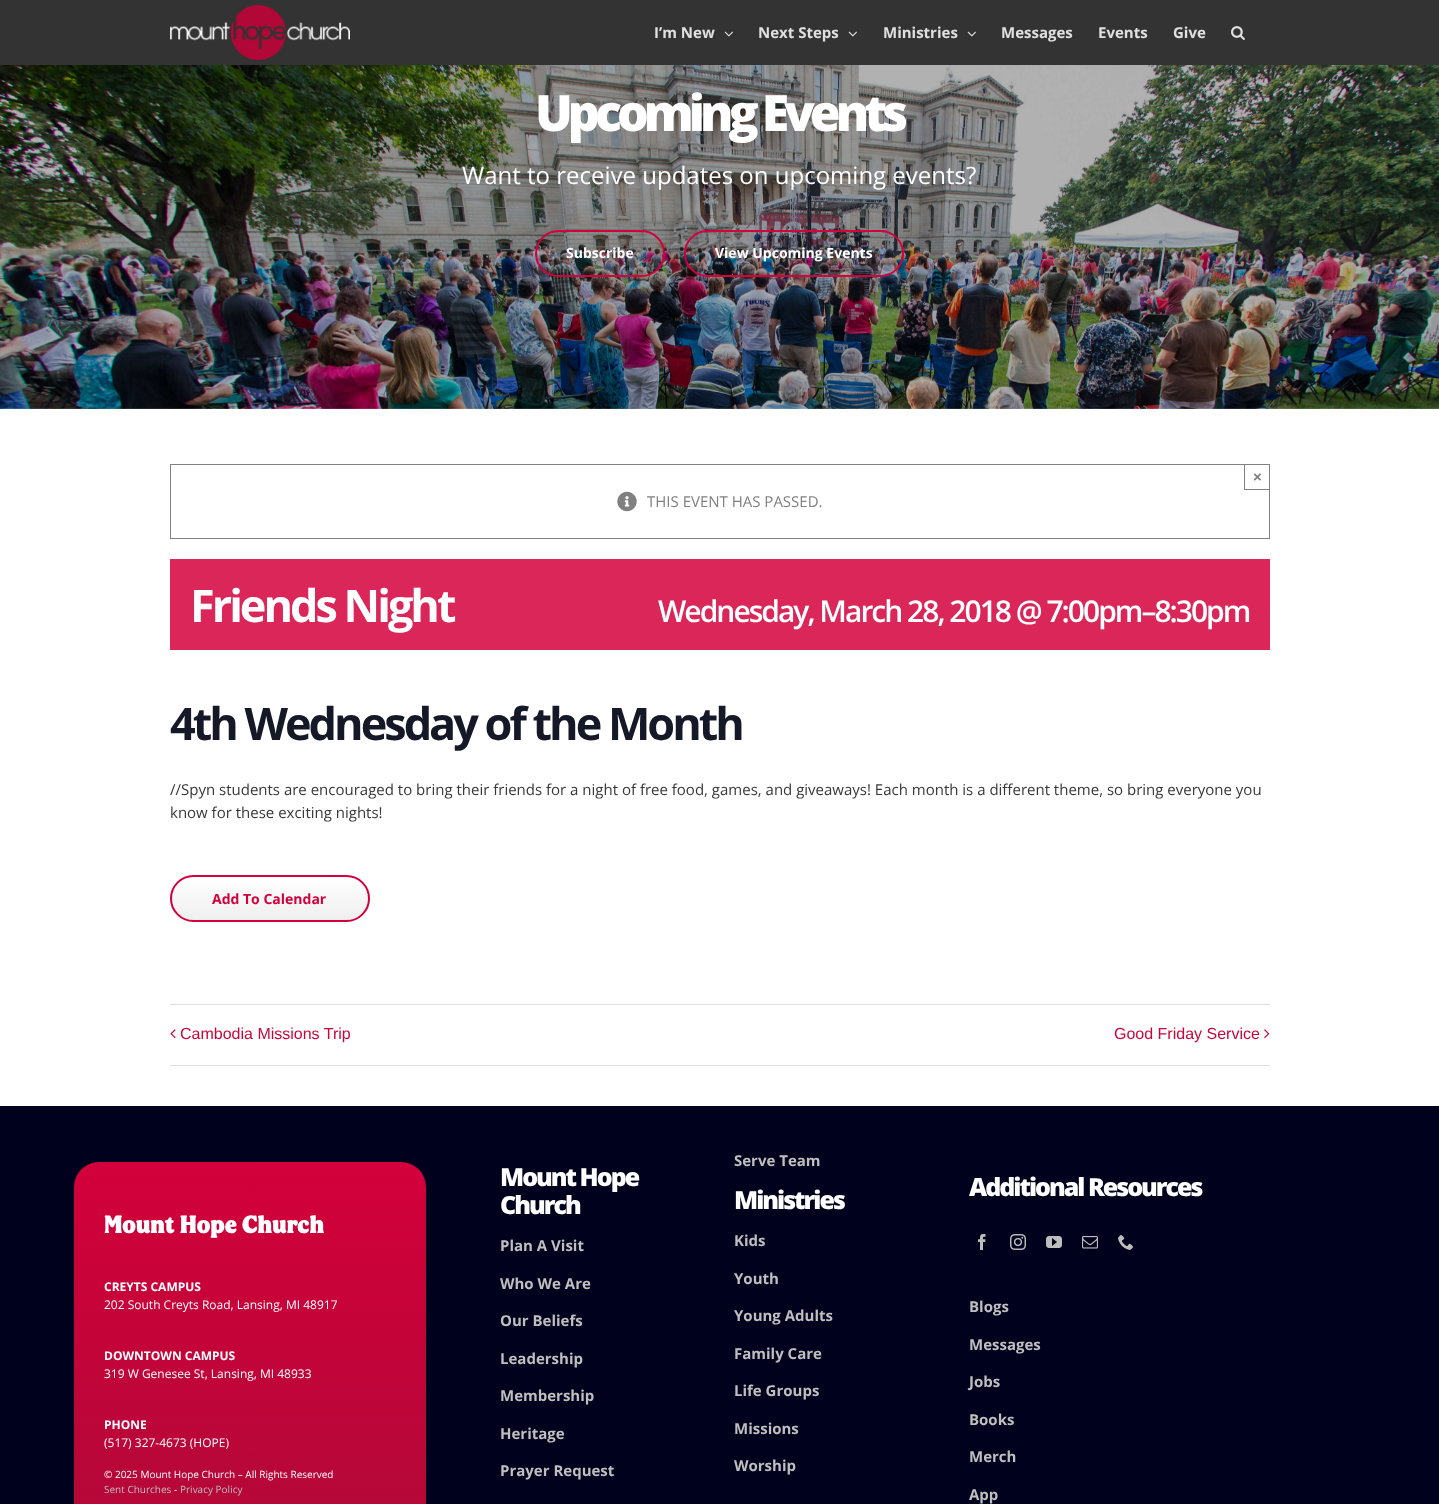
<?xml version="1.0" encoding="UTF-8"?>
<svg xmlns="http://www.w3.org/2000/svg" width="1439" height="1504">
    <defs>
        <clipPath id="clip1"><rect x="170" y="875" width="200" height="47" rx="23.5"/></clipPath>
        <linearGradient id="g1" gradientUnits="userSpaceOnUse" x1="270" y1="877" x2="270" y2="920"><stop offset="0" stop-color="#FFFFFF"/><stop offset="1" stop-color="#EFEFEF"/></linearGradient>
        <linearGradient id="g2" gradientUnits="userSpaceOnUse" x1="250" y1="1162" x2="250" y2="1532"><stop offset="0" stop-color="#D3003B"/><stop offset="1" stop-color="#B30838"/></linearGradient>
    </defs>
    <rect width="100%" height="100%" fill="#FFFFFF"/>
    <rect x="0" y="0" width="1439" height="65" fill="#333333"/>
    <image x="170" y="5" width="180" height="55" href="img_01.png"/>
    <text x="654" y="38" font-family="Open Sans" font-size="15" font-weight="700" fill="#E0E0E0">I’m New</text>
    <image x="724" y="31" width="9" height="6" href="img_02.png"/>
    <text x="758" y="38" font-family="Open Sans" font-size="15" font-weight="700" fill="#E0E0E0">Next Steps</text>
    <image x="848" y="31" width="9" height="6" href="img_02.png"/>
    <text x="883" y="38" font-family="Open Sans" font-size="15" font-weight="700" fill="#E0E0E0">Ministries</text>
    <image x="967" y="31" width="9" height="6" href="img_02.png"/>
    <text x="1001" y="38" font-family="Open Sans" font-size="15" font-weight="700" fill="#E0E0E0">Messages</text>
    <text x="1098" y="38" font-family="Open Sans" font-size="15" font-weight="700" fill="#E0E0E0">Events</text>
    <text x="1173" y="38" font-family="Open Sans" font-size="15" font-weight="700" fill="#E0E0E0">Give</text>
    <image x="1231" y="26" width="14" height="14" href="img_03.png"/>
    <image x="0" y="65" width="1439" height="344" href="img_04.png"/>
    <text x="535" y="131" font-family="Open Sans" font-size="50" font-weight="800" letter-spacing="-5" fill="#FFFFFF">Upcoming Events</text>
    <text x="462" y="184" font-family="Open Sans" font-size="24" fill="#FFFFFF">Want to receive updates on upcoming events?</text>
    <rect x="536" y="231" width="128" height="45" rx="22.5" fill="none" stroke="#D3003B" stroke-width="2"/>
    <text x="566" y="258" font-family="Open Sans" font-size="14" font-weight="700" fill="#FFFFFF">Subscribe</text>
    <rect x="685" y="231" width="218" height="45" rx="22.5" fill="none" stroke="#D3003B" stroke-width="2"/>
    <text x="715" y="258" font-family="Open Sans" font-size="14" font-weight="700" fill="#FFFFFF">View Upcoming Events</text>
    <rect x="170.5" y="464.5" width="1099" height="74" fill="none" stroke="#808080"/>
    <rect x="1244" y="489" width="26" height="1" fill="#808080"/>
    <rect x="1244" y="464" width="1" height="26" fill="#808080"/>
    <text x="1253" y="482" font-family="Liberation Sans" font-size="15" font-weight="700" fill="#808080">×</text>
    <image x="617" y="491" width="20" height="21" href="img_05.png"/>
    <text x="647" y="507" font-family="Open Sans" font-size="15" fill="#808080">THIS EVENT HAS PASSED.</text>
    <rect x="170" y="559" width="1100" height="91" fill="#DA2658"/>
    <text x="190" y="622" font-family="Open Sans" font-size="45" font-weight="700" letter-spacing="-3" fill="#FFFFFF">Friends Night</text>
    <text x="658" y="622" font-family="Open Sans" font-size="30" font-weight="600" letter-spacing="-2" fill="#FFFFFF">Wednesday, March 28, 2018 @ 7:00pm–8:30pm</text>
    <text x="170" y="740" font-family="Open Sans" font-size="45" font-weight="700" letter-spacing="-3" fill="#141827">4th Wednesday of the Month</text>
    <text font-family="Open Sans" font-size="15" fill="#383838">
        <tspan x="170" y="795">//Spyn students are encouraged to bring their friends for a night of free food, games, and giveaways! Each month is a different theme, so bring everyone you</tspan>
        <tspan x="170" y="818">know for these exciting nights!</tspan>
    </text>
    <g clip-path="url(#clip1)">
        <rect x="170" y="877" width="200" height="43" fill="url(#g1)"/>
    </g>
    <rect x="171" y="876" width="198" height="45" rx="22.5" fill="none" stroke="#D3003B" stroke-width="2"/>
    <text x="212" y="904" font-family="Open Sans" font-size="14" font-weight="700" fill="#D3003B">Add To Calendar</text>
    <rect x="170" y="1004" width="1100" height="1" fill="#E0DEDE"/>
    <rect x="170" y="1065" width="1100" height="1" fill="#E0DEDE"/>
    <image x="170" y="1029" width="6" height="10" href="img_06.png"/>
    <text x="180" y="1039" font-family="Liberation Sans" font-size="16" fill="#C6073A">Cambodia Missions Trip</text>
    <text x="1114" y="1039" font-family="Liberation Sans" font-size="16" fill="#C6073A">Good Friday Service</text>
    <image x="1264" y="1029" width="6" height="10" href="img_07.png"/>
    <rect x="0" y="1106" width="1439" height="398" fill="#00011C"/>
    <rect x="74" y="1162" width="352" height="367" rx="25" fill="url(#g2)"/>
    <text x="104" y="1233" font-family="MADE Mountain" font-size="25" fill="#FFFFFF">Mount Hope Church</text>
    <text x="104" y="1291" font-family="Open Sans" font-size="12" font-weight="700" fill="#FFFFFF">CREYTS CAMPUS</text>
    <text x="104" y="1309" font-family="Open Sans" font-size="12" fill="#FFFFFF">202 South Creyts Road, Lansing, MI 48917</text>
    <text x="104" y="1360" font-family="Open Sans" font-size="12" font-weight="700" fill="#FFFFFF">DOWNTOWN CAMPUS</text>
    <text x="104" y="1378" font-family="Open Sans" font-size="12" fill="#FFFFFF">319 W Genesee St, Lansing, MI 48933</text>
    <text x="104" y="1429" font-family="Open Sans" font-size="12" font-weight="700" fill="#FFFFFF">PHONE</text>
    <text x="104" y="1447" font-family="Open Sans" font-size="12" fill="#FFFFFF">(517) 327-4673 (HOPE)</text>
    <text x="104" y="1478" font-family="Open Sans" font-size="10" fill="#FFFFFF">© 2025 Mount Hope Church – All Rights Reserved</text>
    <text x="104" y="1493" font-family="Open Sans" font-size="10" fill="#BFBFBF">Sent Churches</text>
    <text x="174" y="1493" font-family="Open Sans" font-size="10" fill="#FFFFFF">-</text>
    <text x="180" y="1493" font-family="Open Sans" font-size="10" fill="#BFBFBF">Privacy Policy</text>
    <text x="734" y="1166" font-family="Open Sans" font-size="15" font-weight="700" fill="#BFBFBF">Serve Team</text>
    <text font-family="Open Sans" font-size="25" font-weight="800" letter-spacing="-2" fill="#FFFFFF">
        <tspan x="500" y="1186">Mount Hope</tspan>
        <tspan x="500" y="1214">Church</tspan>
    </text>
    <text x="734" y="1209" font-family="Open Sans" font-size="25" font-weight="800" letter-spacing="-2" fill="#FFFFFF">Ministries</text>
    <text x="500" y="1251" font-family="Open Sans" font-size="15" font-weight="700" fill="#BFBFBF">Plan A Visit</text>
    <text x="734" y="1246" font-family="Open Sans" font-size="15" font-weight="700" fill="#BFBFBF">Kids</text>
    <text x="500" y="1289" font-family="Open Sans" font-size="15" font-weight="700" fill="#BFBFBF">Who We Are</text>
    <text x="734" y="1284" font-family="Open Sans" font-size="15" font-weight="700" fill="#BFBFBF">Youth</text>
    <text x="500" y="1326" font-family="Open Sans" font-size="15" font-weight="700" fill="#BFBFBF">Our Beliefs</text>
    <text x="734" y="1321" font-family="Open Sans" font-size="15" font-weight="700" fill="#BFBFBF">Young Adults</text>
    <text x="500" y="1364" font-family="Open Sans" font-size="15" font-weight="700" fill="#BFBFBF">Leadership</text>
    <text x="734" y="1359" font-family="Open Sans" font-size="15" font-weight="700" fill="#BFBFBF">Family Care</text>
    <text x="500" y="1401" font-family="Open Sans" font-size="15" font-weight="700" fill="#BFBFBF">Membership</text>
    <text x="734" y="1396" font-family="Open Sans" font-size="15" font-weight="700" fill="#BFBFBF">Life Groups</text>
    <text x="500" y="1439" font-family="Open Sans" font-size="15" font-weight="700" fill="#BFBFBF">Heritage</text>
    <text x="734" y="1434" font-family="Open Sans" font-size="15" font-weight="700" fill="#BFBFBF">Missions</text>
    <text x="500" y="1476" font-family="Open Sans" font-size="15" font-weight="700" fill="#BFBFBF">Prayer Request</text>
    <text x="734" y="1471" font-family="Open Sans" font-size="15" font-weight="700" fill="#BFBFBF">Worship</text>
    <text x="969" y="1196" font-family="Open Sans" font-size="25" font-weight="800" letter-spacing="-2" fill="#FFFFFF">Additional Resources</text>
    <image x="978" y="1234" width="8" height="16" href="img_08.png"/>
    <image x="1010" y="1234" width="16" height="16" href="img_09.png"/>
    <image x="1046" y="1236" width="16" height="12" href="img_10.png"/>
    <image x="1082" y="1236" width="16" height="13" href="img_11.png"/>
    <image x="1118" y="1235" width="15" height="15" href="img_12.png"/>
    <text x="969" y="1312" font-family="Open Sans" font-size="15" font-weight="700" fill="#BFBFBF">Blogs</text>
    <text x="969" y="1350" font-family="Open Sans" font-size="15" font-weight="700" fill="#BFBFBF">Messages</text>
    <text x="969" y="1387" font-family="Open Sans" font-size="15" font-weight="700" fill="#BFBFBF">Jobs</text>
    <text x="969" y="1425" font-family="Open Sans" font-size="15" font-weight="700" fill="#BFBFBF">Books</text>
    <text x="969" y="1462" font-family="Open Sans" font-size="15" font-weight="700" fill="#BFBFBF">Merch</text>
    <text x="969" y="1500" font-family="Open Sans" font-size="15" font-weight="700" fill="#BFBFBF">App</text>
</svg>
